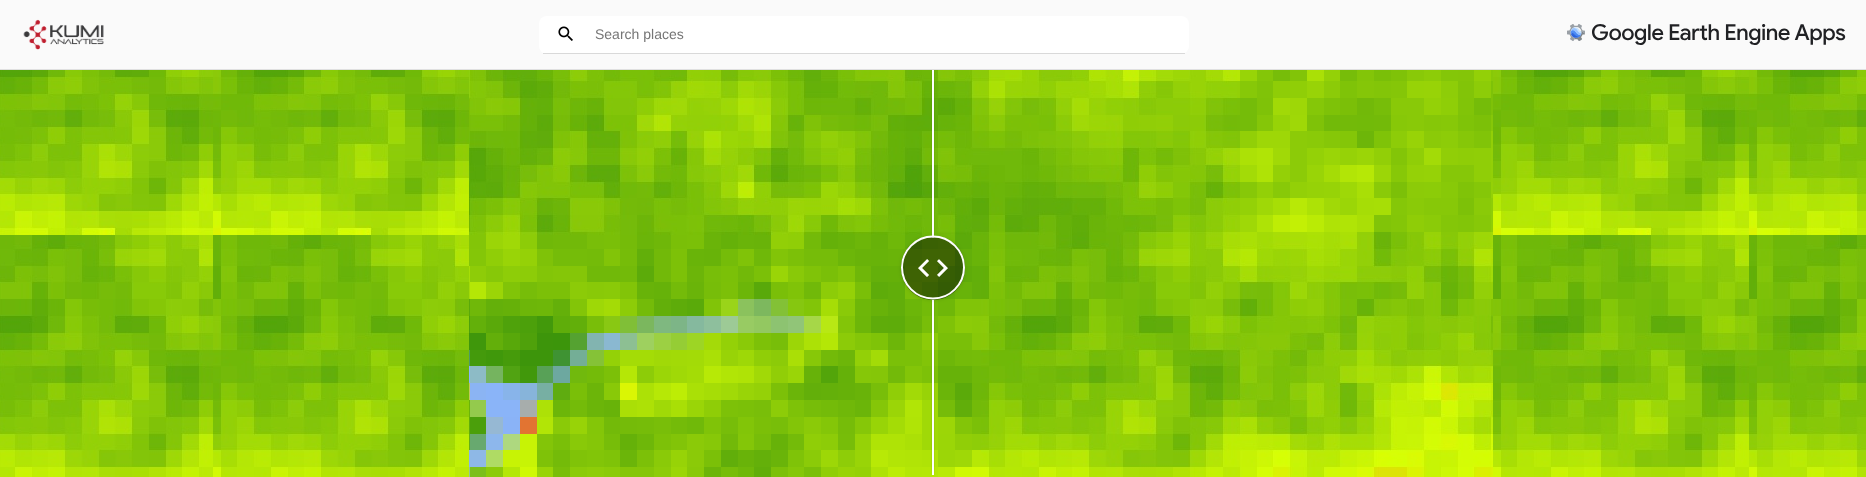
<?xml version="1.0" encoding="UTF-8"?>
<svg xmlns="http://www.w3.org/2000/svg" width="1866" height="477">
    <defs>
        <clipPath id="clip1"><rect x="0" y="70" width="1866" height="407"/></clipPath>
        <filter id="blur1" x="-50%" y="-200%" width="200%" height="500%"><feGaussianBlur stdDeviation="2"/></filter>
        <clipPath id="clip2"><path d="M 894 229 H 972 V 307 H 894 Z M 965 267.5 C 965 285 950.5 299.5 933 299.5 C 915.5 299.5 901 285 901 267.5 C 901 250 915.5 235.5 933 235.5 C 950.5 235.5 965 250 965 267.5 Z" clip-rule="evenodd"/></clipPath>
    </defs>
    <rect width="100%" height="100%" fill="#FAFAFA"/>
    <rect x="0" y="69" width="1866" height="1" fill="#E0E0E0"/>
    <image x="23" y="19" width="81" height="31" href="img_01.png"/>
    <rect x="539" y="16" width="650" height="38" rx="8" fill="#FFFFFF"/>
    <rect x="543" y="53" width="642" height="1" fill="#D9D9D9"/>
    <image x="558" y="26" width="15" height="15" href="img_02.png"/>
    <text x="595" y="39" font-family="Liberation Sans" font-size="14" fill="#757575">Search places</text>
    <image x="1567" y="24" width="279" height="21" href="img_03.png"/>
    <image x="725" y="70" width="207" height="165" href="img_08.png"/>
    <rect x="469" y="299" width="369" height="178" fill="#8AB4F8"/>
    <image x="725" y="235" width="208" height="242" href="img_12.png"/>
    <image x="934" y="70" width="47" height="165" href="img_13.png"/>
    <image x="933" y="235" width="48" height="242" href="img_17.png"/>
    <g clip-path="url(#clip1)">
        <rect x="932" y="62" width="2" height="174" fill="#000000" fill-opacity="0.18" filter="url(#blur1)"/>
    </g>
    <path d="M 932 236 V 238 H 934 V 236 Z" fill="#FFFFFF"/>
    <rect x="932" y="70" width="2" height="166" fill="#FFFFFF"/>
    <rect x="932" y="300" width="2" height="173" fill="#000000" fill-opacity="0.18" filter="url(#blur1)"/>
    <rect x="932" y="300" width="2" height="173" fill="#FFFFFF"/>
    <g clip-path="url(#clip2)">
        <rect x="901" y="236" width="64" height="64" rx="32" fill="#000000" fill-opacity="0.12" filter="url(#blur1)"/>
    </g>
    <path d="M 965 268 C 965 285 951 300 933 300 C 915 300 901 285 901 268 C 901 250 915 236 933 236 C 951 236 965 250 965 268 Z" fill="#000000" fill-opacity="0.47"/>
    <image x="918" y="259" width="30" height="18" href="img_04.png"/>
    <path d="M 964 267.5 C 964 284.5 950 298.5 933 298.5 C 916 298.5 902 284.5 902 267.5 C 902 250.5 916 236.5 933 236.5 C 950 236.5 964 250.5 964 267.5 Z" fill="none" stroke="#FFFFFF" stroke-width="2"/>
    <path d="M 932 473 V 475 H 934 V 473 Z" fill="#FFFFFF"/>
    <image x="0" y="70" width="213" height="165" href="img_05.png"/>
    <image x="213" y="70" width="256" height="165" href="img_06.png"/>
    <image x="469" y="70" width="256" height="165" href="img_07.png"/>
    <image x="0" y="235" width="213" height="242" href="img_09.png"/>
    <image x="213" y="235" width="256" height="242" href="img_10.png"/>
    <image x="469" y="235" width="256" height="242" href="img_11.png"/>
    <image x="981" y="70" width="256" height="165" href="img_14.png"/>
    <image x="1237" y="70" width="256" height="165" href="img_15.png"/>
    <image x="1493" y="70" width="256" height="165" href="img_06.png"/>
    <image x="1749" y="70" width="117" height="165" href="img_16.png"/>
    <image x="981" y="235" width="256" height="242" href="img_10.png"/>
    <image x="1237" y="235" width="256" height="242" href="img_18.png"/>
    <image x="1493" y="235" width="256" height="242" href="img_10.png"/>
    <image x="1749" y="235" width="117" height="242" href="img_19.png"/>
</svg>
